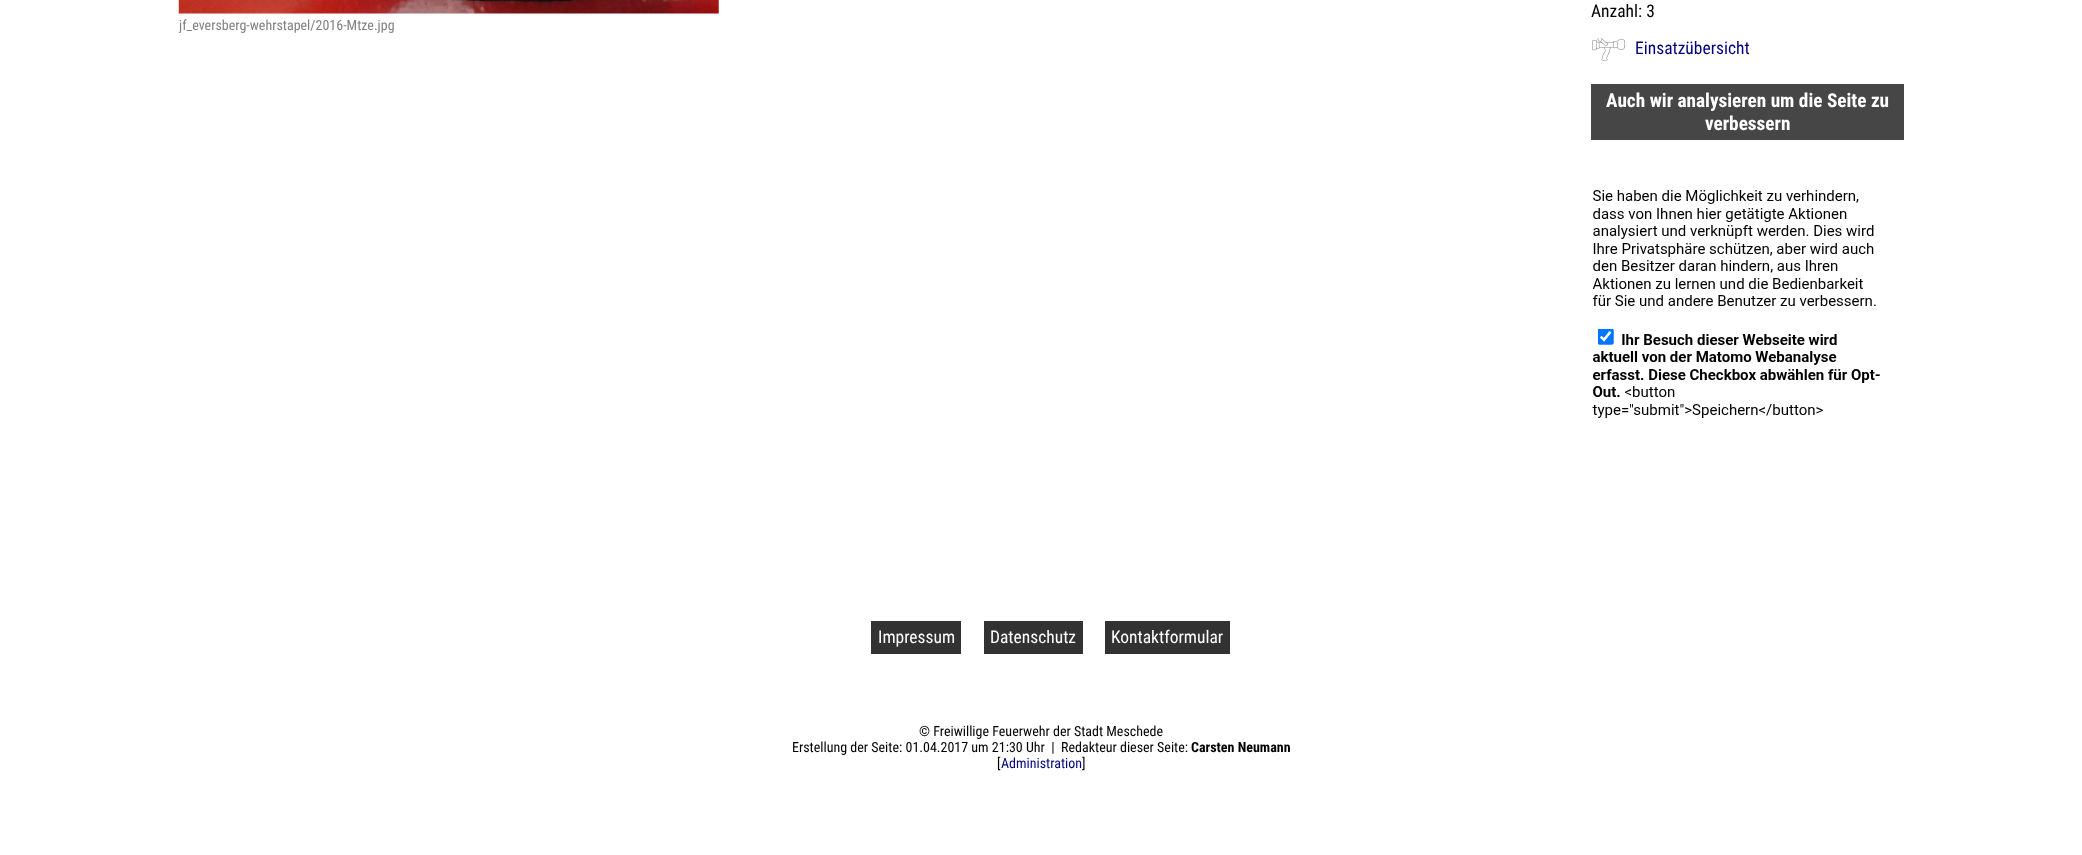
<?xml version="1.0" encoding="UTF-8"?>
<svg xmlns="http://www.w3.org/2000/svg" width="2082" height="855">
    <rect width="100%" height="100%" fill="#FFFFFF"/>
    <image x="178" y="0" width="541" height="14" href="img_01.png"/>
    <text x="179" y="30" font-family="Roboto Condensed" font-size="14" fill="#808080">jf_eversberg-wehrstapel/2016-Mtze.jpg</text>
    <text x="1591" y="17" font-family="Roboto Condensed" font-size="17.5" fill="#000000">Anzahl: 3</text>
    <image x="1592" y="38" width="34" height="23" href="img_02.png"/>
    <text x="1635" y="54" font-family="Roboto Condensed" font-size="17.5" fill="#000080">Einsatzübersicht</text>
    <rect x="1591" y="84" width="313" height="56" fill="#464646"/>
    <text x="1606" y="107" font-family="Roboto Condensed" font-size="19.25" font-weight="700" fill="#FFFFFF">Auch wir analysieren um die Seite zu</text>
    <text x="1705" y="130" font-family="Roboto Condensed" font-size="19.25" font-weight="700" fill="#FFFFFF">verbessern</text>
    <image x="1592" y="190" width="288" height="228" href="img_03.png"/>
    <rect x="871" y="621" width="90" height="33" fill="#323232"/>
    <text x="878" y="643" font-family="Roboto Condensed" font-size="17.5" fill="#FFFFFF">Impressum</text>
    <rect x="984" y="621" width="99" height="33" fill="#323232"/>
    <text x="990" y="643" font-family="Roboto Condensed" font-size="17.5" fill="#FFFFFF">Datenschutz</text>
    <rect x="1105" y="621" width="125" height="33" fill="#323232"/>
    <text x="1111" y="643" font-family="Roboto Condensed" font-size="17.5" fill="#FFFFFF">Kontaktformular</text>
    <text x="919" y="736" font-family="Roboto Condensed" font-size="14" fill="#000000">© Freiwillige Feuerwehr der Stadt Meschede</text>
    <text x="792" y="752" font-family="Roboto Condensed" font-size="14" fill="#000000" xml:space="preserve">Erstellung der Seite: 01.04.2017 um 21:30 Uhr  |  Redakteur dieser Seite:</text>
    <text x="1191" y="752" font-family="Roboto Condensed" font-size="14" font-weight="700" fill="#000000">Carsten Neumann</text>
    <text x="997" y="768" font-family="Roboto Condensed" font-size="14" fill="#000000">[</text>
    <text x="1001" y="768" font-family="Roboto Condensed" font-size="14" fill="#000080">Administration</text>
    <text x="1082" y="768" font-family="Roboto Condensed" font-size="14" fill="#000000">]</text>
</svg>
